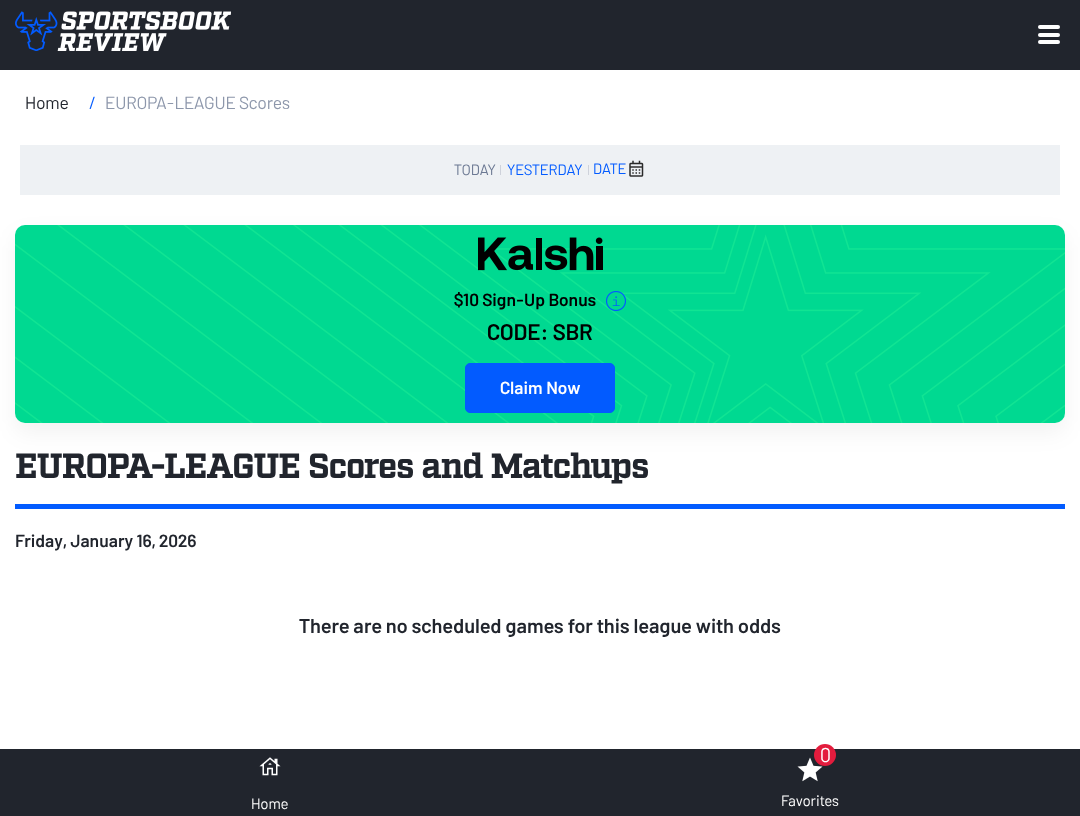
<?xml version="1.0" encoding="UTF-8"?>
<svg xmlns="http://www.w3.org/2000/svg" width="1080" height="816">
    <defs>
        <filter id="blur1" x="-50%" y="-200%" width="200%" height="500%"><feGaussianBlur stdDeviation="11"/></filter>
    </defs>
    <rect width="100%" height="100%" fill="#FFFFFF"/>
    <rect x="0" y="0" width="1080" height="70" fill="#21252D"/>
    <image x="15" y="11" width="216" height="40" href="img_01.png"/>
    <rect x="1038" y="25" width="22" height="4" rx="2" fill="#FFFFFF"/>
    <rect x="1038" y="33" width="22" height="4" rx="2" fill="#FFFFFF"/>
    <rect x="1038" y="40" width="22" height="4" rx="2" fill="#FFFFFF"/>
    <text x="25" y="109" font-family="Barlow" font-size="17.5" fill="#21252D">Home</text>
    <text x="89" y="109" font-family="Barlow" font-size="17.5" fill="#025BFF">/</text>
    <text x="105" y="109" font-family="Barlow" font-size="17.5" fill="#8D97AB">EUROPA-LEAGUE Scores</text>
    <rect x="20" y="145" width="1040" height="50" fill="#EEF1F4"/>
    <text x="454" y="175" font-family="Barlow" font-size="15" fill="#6C7993">TODAY</text>
    <rect x="500" y="165" width="1" height="10" fill="#CED2DB"/>
    <text x="507" y="175" font-family="Barlow" font-size="15" fill="#025BFF">YESTERDAY</text>
    <rect x="588" y="165" width="1" height="10" fill="#CED2DB"/>
    <text x="593" y="174" font-family="Barlow" font-size="15" fill="#025BFF">DATE</text>
    <image x="629" y="160" width="15" height="17" href="img_02.png"/>
    <rect x="15" y="235" width="1050" height="198" rx="10" fill="#21252D" fill-opacity="0.05" filter="url(#blur1)"/>
    <rect x="15" y="225" width="1050" height="198" rx="10" fill="#00D991"/>
    <image x="15" y="225" width="1050" height="198" href="img_03.png"/>
    <image x="478" y="237" width="125" height="34" href="img_04.png"/>
    <text x="454" y="306" font-family="Barlow" font-size="17.5" font-weight="600" fill="#000000">$10 Sign-Up Bonus</text>
    <image x="606" y="291" width="20" height="20" href="img_05.png"/>
    <text x="487" y="340" font-family="Barlow" font-size="22.5" font-weight="600" fill="#000000">CODE: SBR</text>
    <rect x="465.5" y="363.5" width="149" height="49" rx="4.5" fill="#025BFF" stroke="#025BFF"/>
    <text x="500" y="394" font-family="Barlow" font-size="17.5" font-weight="600" fill="#FFFFFF">Claim Now</text>
    <rect x="15" y="504" width="1050" height="5" fill="#025BFF"/>
    <text x="15" y="478" font-family="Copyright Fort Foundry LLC" font-size="35" font-weight="700" letter-spacing="-1.25" fill="#21252D">EUROPA-LEAGUE Scores and Matchups</text>
    <text x="15" y="547" font-family="Barlow" font-size="17.5" font-weight="600" fill="#21252D">Friday, January 16, 2026</text>
    <text x="299" y="633" font-family="Barlow" font-size="20" font-weight="600" fill="#21252D">There are no scheduled games for this league with odds</text>
    <rect x="0" y="749" width="1080" height="67" fill="#21252D"/>
    <image x="259" y="757" width="22" height="19" href="img_06.png"/>
    <text x="251" y="809" font-family="Barlow" font-size="15" fill="#FFFFFF">Home</text>
    <image x="797" y="757" width="26" height="25" href="img_07.png"/>
    <circle cx="825" cy="755" r="11" fill="#E31C3D"/>
    <text x="820" y="762" font-family="Barlow" font-size="20" fill="#FFFFFF">0</text>
    <text x="781" y="806" font-family="Barlow" font-size="15" fill="#FFFFFF">Favorites</text>
</svg>
